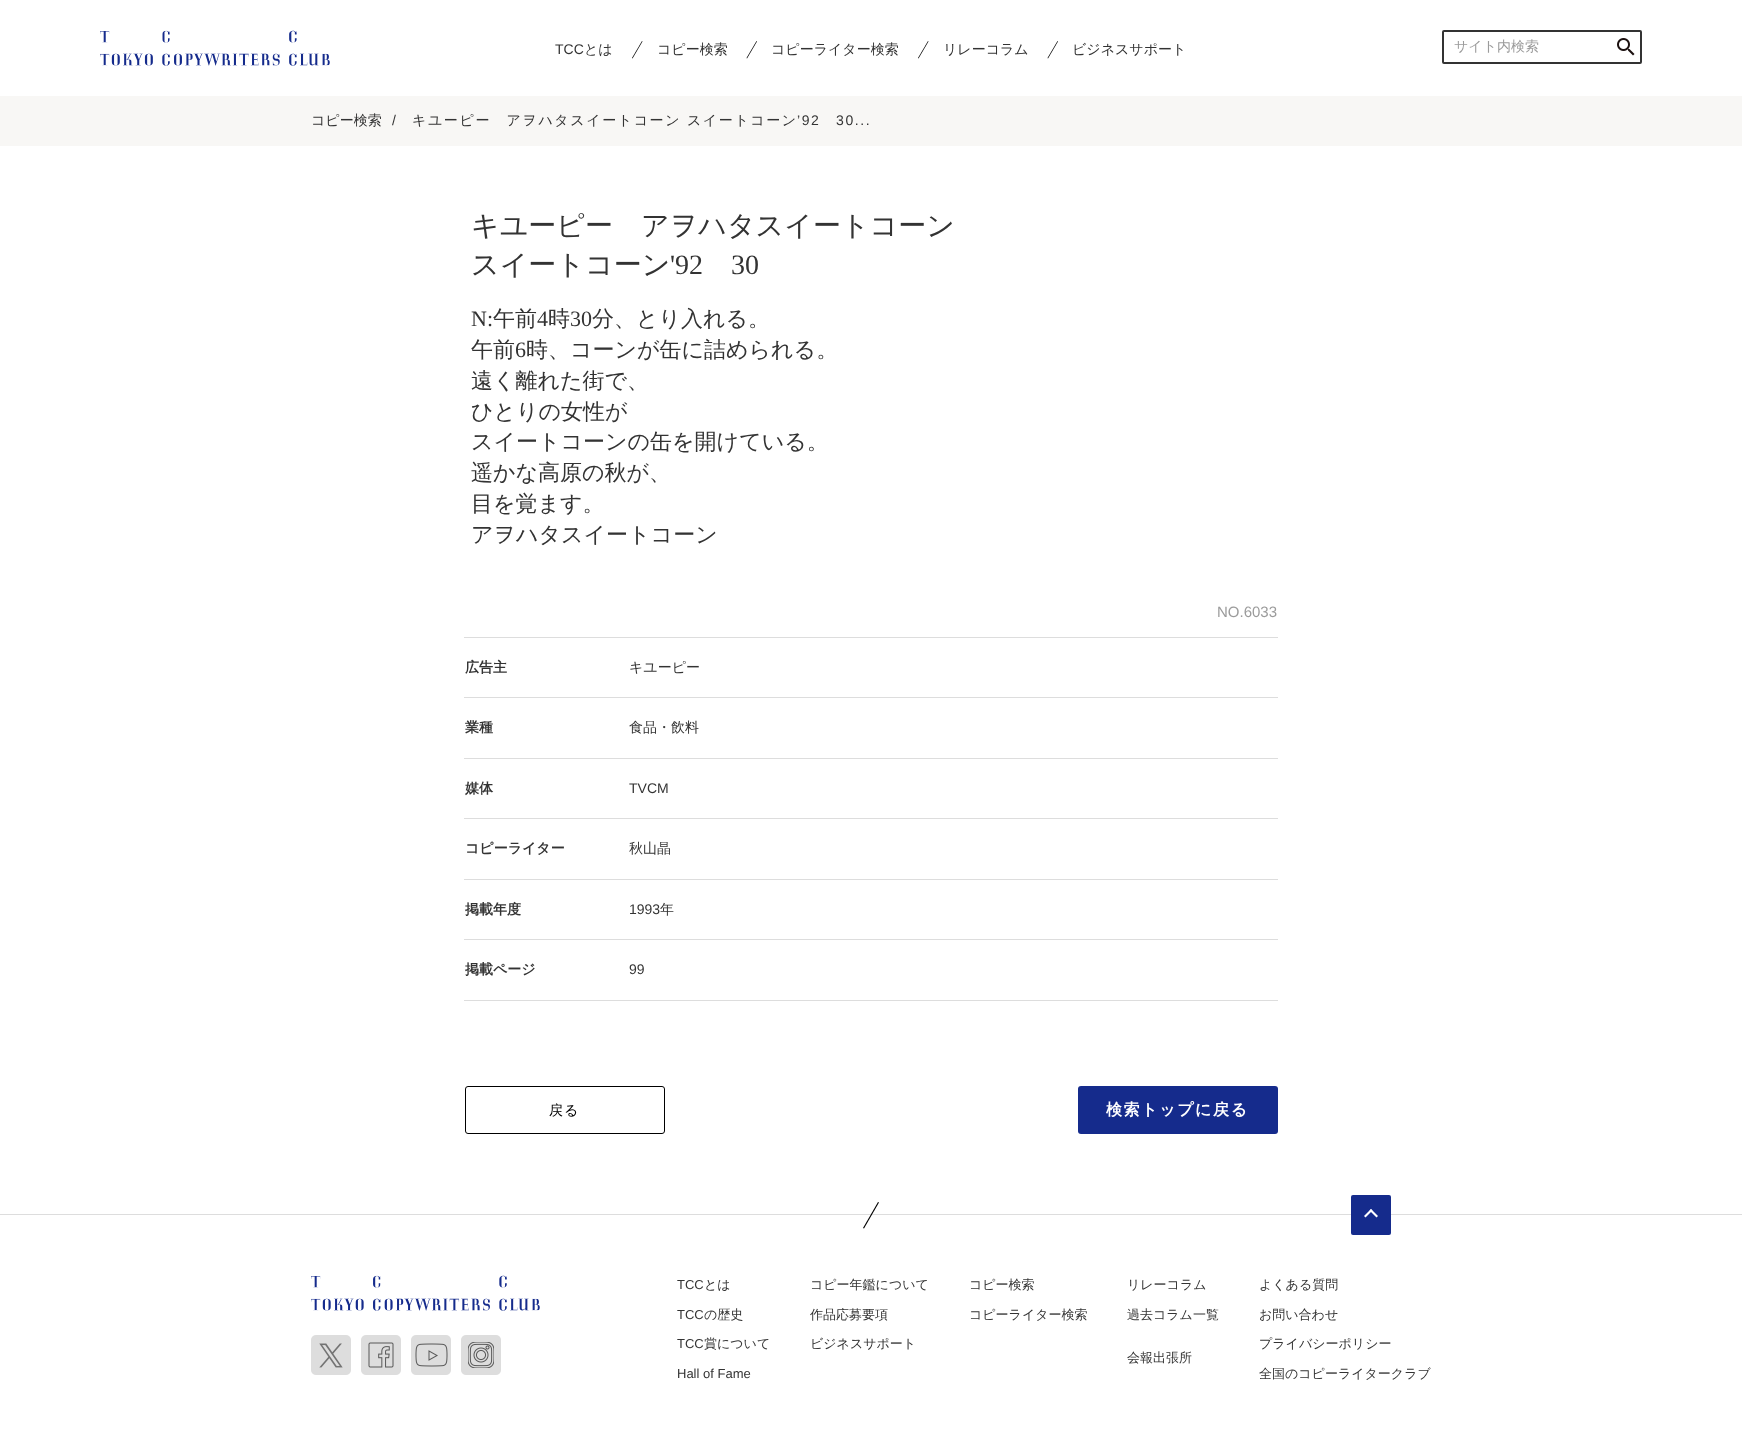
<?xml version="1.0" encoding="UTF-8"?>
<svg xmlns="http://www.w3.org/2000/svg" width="1742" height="1451">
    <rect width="100%" height="100%" fill="#FFFFFF"/>
    <image x="100" y="30" width="230" height="36" href="img_01.png"/>
    <text x="555" y="54" font-family="Liberation Sans" font-size="14" fill="#333333">TCC</text>
    <text x="584" y="54" font-family="WenQuanYi Zen Hei" font-size="14" font-weight="500" fill="#333333">とは</text>
    <path d="M 642 41 L 642.5 41.5 L 632.5 58.5 L 632 58 Z" fill="#000000"/>
    <text x="657" y="54" font-family="WenQuanYi Zen Hei" font-size="14" font-weight="500" fill="#333333">コピー検索</text>
    <path d="M 756.5 41 L 757 41.5 L 747 58.5 L 746.5 58 Z" fill="#000000"/>
    <text x="771" y="54" font-family="WenQuanYi Zen Hei" font-size="14" font-weight="500" fill="#333333">コピーライター検索</text>
    <path d="M 928 41 L 928.5 41.5 L 918.5 58.5 L 918 58 Z" fill="#000000"/>
    <text x="943" y="54" font-family="WenQuanYi Zen Hei" font-size="14" font-weight="500" fill="#333333">リレーコラム</text>
    <path d="M 1057.5 41 L 1058 41.5 L 1048 58.5 L 1047.5 58 Z" fill="#000000"/>
    <text x="1072" y="54" font-family="WenQuanYi Zen Hei" font-size="14" font-weight="500" fill="#333333">ビジネスサポート</text>
    <rect x="1443" y="31" width="198" height="32" rx="1" fill="none" stroke="#333333" stroke-width="2"/>
    <text x="1454" y="51" font-family="WenQuanYi Zen Hei" font-size="14" font-weight="500" fill="#9B9B9B">サイト内検索</text>
    <image x="1617" y="38" width="18" height="18" href="img_02.png"/>
    <rect x="0" y="96" width="1742" height="50" fill="#F8F7F5"/>
    <text x="311" y="125" font-family="WenQuanYi Zen Hei" font-size="14" font-weight="500" fill="#333333">コピー検索</text>
    <text x="392" y="125" font-family="Liberation Sans" font-size="14" fill="#333333">/</text>
    <text x="412" y="125" font-family="WenQuanYi Zen Hei" font-size="14" font-weight="500" letter-spacing="1.6" fill="#333333">キユーピー　アヲハタスイートコーン スイートコーン</text>
    <text x="797" y="125" font-family="Liberation Sans" font-size="14" letter-spacing="1.6" fill="#333333">’92</text>
    <text x="836" y="125" font-family="Liberation Sans" font-size="14" letter-spacing="1.6" fill="#333333">30...</text>
    <text font-family="WenQuanYi Zen Hei" font-size="28" font-weight="500" fill="#333333">
        <tspan x="471" y="235">キユーピー　アヲハタスイートコーン</tspan>
        <tspan x="471" y="274">スイートコーン</tspan>
    </text>
    <text x="670" y="274" font-family="Liberation Serif" font-size="28" fill="#333333">'92</text>
    <text x="731" y="274" font-family="Liberation Serif" font-size="28" fill="#333333">30</text>
    <text x="471" y="326" font-family="Liberation Serif" font-size="22" fill="#333333">N:</text>
    <text x="493" y="326" font-family="WenQuanYi Zen Hei" font-size="22" font-weight="500" fill="#333333">午前</text>
    <text x="537" y="326" font-family="Liberation Serif" font-size="22" fill="#333333">4</text>
    <text x="548" y="326" font-family="WenQuanYi Zen Hei" font-size="22" font-weight="500" fill="#333333">時</text>
    <text x="570" y="326" font-family="Liberation Serif" font-size="22" fill="#333333">30</text>
    <text x="592" y="326" font-family="WenQuanYi Zen Hei" font-size="22" font-weight="500" fill="#333333">分、とり入れる。</text>
    <text x="471" y="357" font-family="WenQuanYi Zen Hei" font-size="22" font-weight="500" fill="#333333">午前</text>
    <text x="515" y="357" font-family="Liberation Serif" font-size="22" fill="#333333">6</text>
    <text x="526" y="357" font-family="WenQuanYi Zen Hei" font-size="22" font-weight="500" fill="#333333">時、コーンが缶に詰められる。</text>
    <text font-family="WenQuanYi Zen Hei" font-size="22" font-weight="500" fill="#333333">
        <tspan x="471" y="388">遠く離れた街で、</tspan>
        <tspan x="471" y="419">ひとりの女性が</tspan>
        <tspan x="471" y="449">スイートコーンの缶を開けている。</tspan>
        <tspan x="471" y="480">遥かな高原の秋が、</tspan>
        <tspan x="471" y="511">目を覚ます。</tspan>
        <tspan x="471" y="542">アヲハタスイートコーン</tspan>
    </text>
    <text x="1217" y="617" font-family="Liberation Sans" font-size="15" fill="#9B9B9B">NO.6033</text>
    <rect x="464" y="637" width="814" height="1" fill="#DDDDDD"/>
    <text x="465" y="672" font-family="WenQuanYi Zen Hei" font-size="14" font-weight="700" fill="#333333">広告主</text>
    <text x="629" y="672" font-family="WenQuanYi Zen Hei" font-size="14" font-weight="500" fill="#333333">キユーピー</text>
    <rect x="464" y="697" width="814" height="1" fill="#DDDDDD"/>
    <text x="465" y="732" font-family="WenQuanYi Zen Hei" font-size="14" font-weight="700" fill="#333333">業種</text>
    <text x="629" y="732" font-family="WenQuanYi Zen Hei" font-size="14" font-weight="500" fill="#333333">食品・飲料</text>
    <rect x="464" y="758" width="814" height="1" fill="#DDDDDD"/>
    <text x="465" y="793" font-family="WenQuanYi Zen Hei" font-size="14" font-weight="700" fill="#333333">媒体</text>
    <text x="629" y="793" font-family="Liberation Sans" font-size="14" fill="#333333">TVCM</text>
    <rect x="464" y="818" width="814" height="1" fill="#DDDDDD"/>
    <text x="465" y="853" font-family="WenQuanYi Zen Hei" font-size="14" font-weight="700" fill="#333333">コピーライター</text>
    <text x="629" y="853" font-family="WenQuanYi Zen Hei" font-size="14" font-weight="500" fill="#333333">秋山晶</text>
    <rect x="464" y="879" width="814" height="1" fill="#DDDDDD"/>
    <text x="465" y="914" font-family="WenQuanYi Zen Hei" font-size="14" font-weight="700" fill="#333333">掲載年度</text>
    <text x="629" y="914" font-family="Liberation Sans" font-size="14" fill="#333333">1993</text>
    <text x="660" y="914" font-family="WenQuanYi Zen Hei" font-size="14" font-weight="500" fill="#333333">年</text>
    <rect x="464" y="939" width="814" height="1" fill="#DDDDDD"/>
    <rect x="464" y="1000" width="814" height="1" fill="#DDDDDD"/>
    <text x="465" y="974" font-family="WenQuanYi Zen Hei" font-size="14" font-weight="700" fill="#333333">掲載ページ</text>
    <text x="629" y="974" font-family="Liberation Sans" font-size="14" fill="#333333">99</text>
    <rect x="465.5" y="1086.5" width="199" height="47" rx="2.5" fill="none" stroke="#000000"/>
    <text x="549" y="1115" font-family="WenQuanYi Zen Hei" font-size="14" font-weight="500" letter-spacing="1" fill="#000000">戻る</text>
    <rect x="1078" y="1086" width="200" height="48" rx="3" fill="#152B8C"/>
    <text x="1106" y="1115" font-family="WenQuanYi Zen Hei" font-size="16" font-weight="700" letter-spacing="1.6" fill="#FFFFFF">検索トップに戻る</text>
    <rect x="0" y="1214" width="1742" height="1" fill="#DDDDDD"/>
    <path d="M 878 1202 L 879 1202.5 L 864 1228.5 L 863 1228 Z" fill="#000000"/>
    <rect x="1351" y="1195" width="40" height="40" rx="2" fill="#152B8C"/>
    <path d="M 1371 1209 L 1378 1216 L 1376.5 1217.5 L 1369.5 1210.5 Z" fill="#FFFFFF"/>
    <path d="M 1371 1209 L 1372.5 1210.5 L 1365.5 1217.5 L 1364 1216 Z" fill="#FFFFFF"/>
    <image x="311" y="1275" width="229" height="36" href="img_03.png"/>
    <text x="677" y="1289" font-family="Liberation Sans" font-size="13" fill="#333333">TCC</text>
    <text x="704" y="1289" font-family="WenQuanYi Zen Hei" font-size="13" font-weight="500" fill="#333333">とは</text>
    <text x="677" y="1319" font-family="Liberation Sans" font-size="13" fill="#333333">TCC</text>
    <text x="704" y="1319" font-family="WenQuanYi Zen Hei" font-size="13" font-weight="500" fill="#333333">の歴史</text>
    <text x="677" y="1348" font-family="Liberation Sans" font-size="13" fill="#333333">TCC</text>
    <text x="704" y="1348" font-family="WenQuanYi Zen Hei" font-size="13" font-weight="500" fill="#333333">賞について</text>
    <text x="677" y="1378" font-family="Liberation Sans" font-size="13" fill="#333333">Hall of Fame</text>
    <text x="810" y="1289" font-family="WenQuanYi Zen Hei" font-size="13" font-weight="500" fill="#333333">コピー年鑑について</text>
    <text x="810" y="1319" font-family="WenQuanYi Zen Hei" font-size="13" font-weight="500" fill="#333333">作品応募要項</text>
    <text x="810" y="1348" font-family="WenQuanYi Zen Hei" font-size="13" font-weight="500" fill="#333333">ビジネスサポート</text>
    <text x="969" y="1289" font-family="WenQuanYi Zen Hei" font-size="13" font-weight="500" fill="#333333">コピー検索</text>
    <text x="969" y="1319" font-family="WenQuanYi Zen Hei" font-size="13" font-weight="500" fill="#333333">コピーライター検索</text>
    <text x="1127" y="1289" font-family="WenQuanYi Zen Hei" font-size="13" font-weight="500" fill="#333333">リレーコラム</text>
    <text x="1127" y="1319" font-family="WenQuanYi Zen Hei" font-size="13" font-weight="500" fill="#333333">過去コラム一覧</text>
    <text x="1127" y="1362" font-family="WenQuanYi Zen Hei" font-size="13" font-weight="500" fill="#333333">会報出張所</text>
    <text x="1259" y="1289" font-family="WenQuanYi Zen Hei" font-size="13" font-weight="500" fill="#333333">よくある質問</text>
    <text x="1259" y="1319" font-family="WenQuanYi Zen Hei" font-size="13" font-weight="500" fill="#333333">お問い合わせ</text>
    <text x="1259" y="1348" font-family="WenQuanYi Zen Hei" font-size="13" font-weight="500" fill="#333333">プライバシーポリシー</text>
    <text x="1259" y="1378" font-family="WenQuanYi Zen Hei" font-size="13" font-weight="500" fill="#333333">全国のコピーライタークラブ</text>
    <image x="311" y="1335" width="40" height="40" href="img_04.png"/>
    <image x="361" y="1335" width="40" height="40" href="img_05.png"/>
    <image x="411" y="1335" width="40" height="40" href="img_06.png"/>
    <image x="461" y="1335" width="40" height="40" href="img_07.png"/>
</svg>
